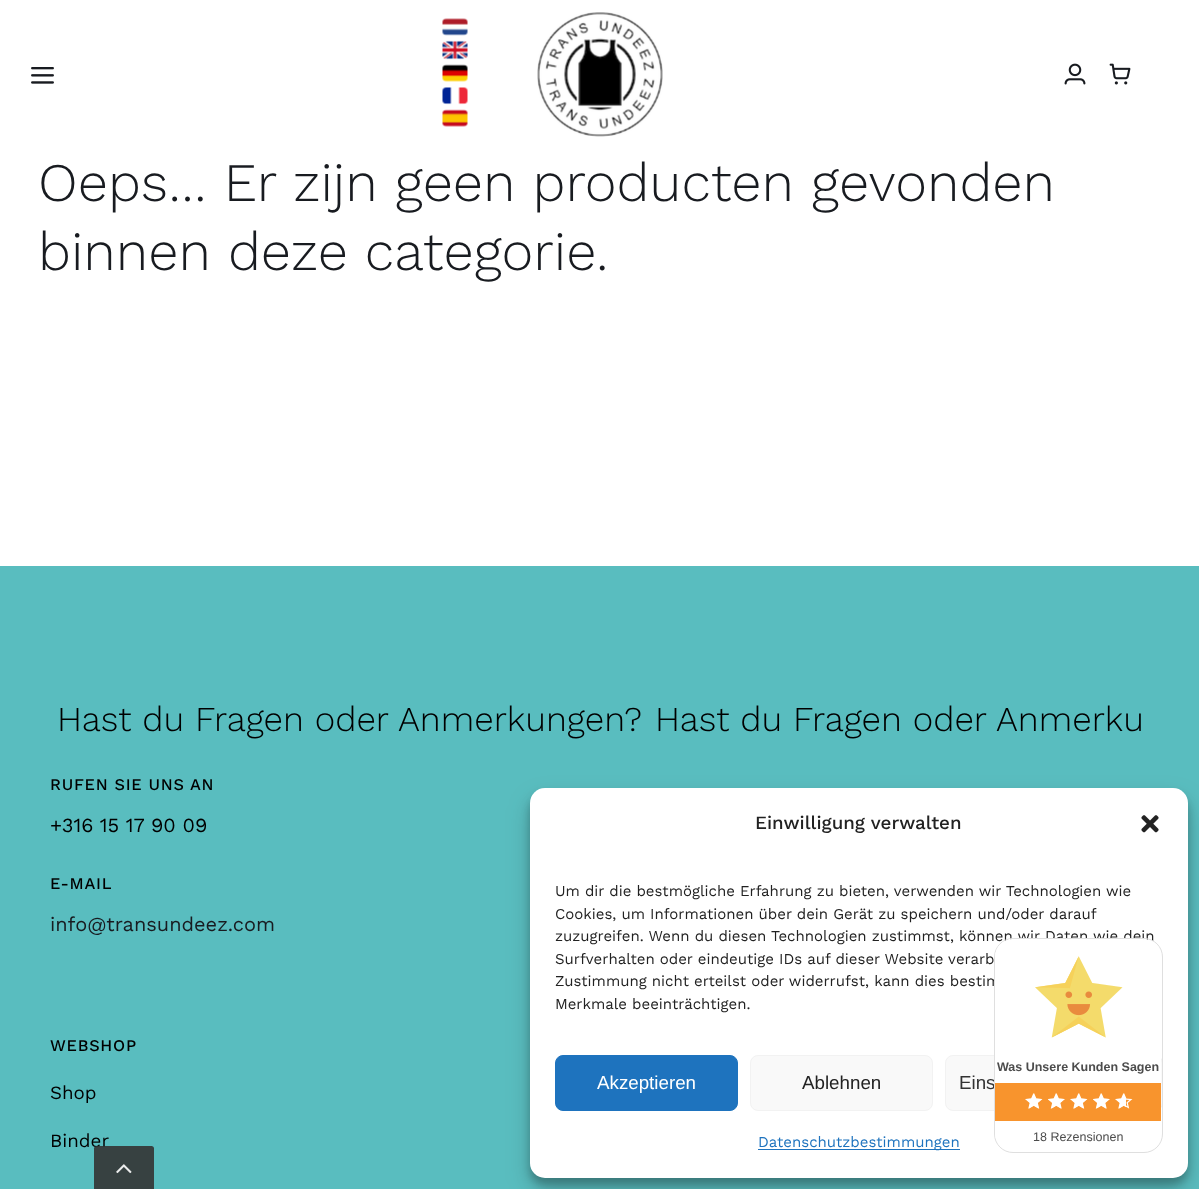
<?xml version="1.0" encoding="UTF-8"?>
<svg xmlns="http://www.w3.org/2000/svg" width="1199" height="1189">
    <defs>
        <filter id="blur1" x="-50%" y="-200%" width="200%" height="500%"><feGaussianBlur stdDeviation="4"/></filter>
        <filter id="blur2" x="-50%" y="-200%" width="200%" height="500%"><feGaussianBlur stdDeviation="12.5"/></filter>
    </defs>
    <rect width="100%" height="100%" fill="#FFFFFF"/>
    <image x="31" y="67" width="23" height="17" href="img_01.png"/>
    <image x="442" y="18" width="26" height="18" href="img_02.png"/>
    <image x="442" y="40" width="26" height="20" href="img_03.png"/>
    <image x="442" y="64" width="26" height="18" href="img_04.png"/>
    <image x="442" y="87" width="26" height="18" href="img_05.png"/>
    <image x="442" y="109" width="26" height="18" href="img_06.png"/>
    <image x="537" y="12" width="126" height="125" href="img_07.png"/>
    <image x="1064" y="63" width="22" height="22" href="img_08.png"/>
    <image x="1109" y="63" width="22" height="22" href="img_09.png"/>
    <text font-family="Work Sans" font-size="54.25" font-weight="300" fill="#181B20">
        <tspan x="38" y="201">Oeps… Er zijn geen producten gevonden</tspan>
        <tspan x="38" y="270">binnen deze categorie.</tspan>
    </text>
    <rect x="0" y="566" width="1199" height="623" fill="#59BDBF"/>
    <text x="57" y="731" font-family="Work Sans" font-size="34.9" font-weight="300" fill="#000000">Hast du Fragen oder Anmerkungen?</text>
    <text x="655" y="731" font-family="Work Sans" font-size="34.9" font-weight="300" fill="#000000">Hast du Fragen oder Anmerku</text>
    <text x="50" y="790" font-family="Work Sans" font-size="16.25" font-weight="500" letter-spacing="0.75" fill="#000000">RUFEN SIE UNS AN</text>
    <text x="50" y="832" font-family="Work Sans" font-size="20" fill="#000000">+316 15 17 90 09</text>
    <text x="50" y="889" font-family="Work Sans" font-size="16.25" font-weight="500" letter-spacing="0.75" fill="#000000">E-MAIL</text>
    <text x="50" y="931" font-family="Work Sans" font-size="20" fill="#181B20">info@transundeez.com</text>
    <text x="50" y="1051" font-family="Work Sans" font-size="16.25" font-weight="500" letter-spacing="0.75" fill="#000000">WEBSHOP</text>
    <text x="50" y="1099" font-family="Work Sans" font-size="18.75" fill="#000000">Shop</text>
    <text x="50" y="1147" font-family="Work Sans" font-size="18.75" fill="#000000">Binder</text>
    <rect x="530" y="795" width="658" height="390" rx="15" fill="#000000" fill-opacity="0.23" filter="url(#blur1)"/>
    <rect x="530" y="800" width="658" height="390" rx="15" fill="#000000" fill-opacity="0.19" filter="url(#blur2)"/>
    <rect x="530" y="788" width="658" height="390" rx="15" fill="#FFFFFF"/>
    <text x="755" y="829" font-family="Work Sans" font-size="18.75" font-weight="500" fill="#222222">Einwilligung verwalten</text>
    <image x="1141" y="815" width="18" height="18" href="img_10.png"/>
    <text font-family="Work Sans" font-size="15" fill="#222222">
        <tspan x="555" y="896">Um dir die bestmögliche Erfahrung zu bieten, verwenden wir Technologien wie</tspan>
        <tspan x="555" y="919">Cookies, um Informationen über dein Gerät zu speichern und/oder darauf</tspan>
        <tspan x="555" y="941">zuzugreifen. Wenn du diesen Technologien zustimmst, können wir Daten wie dein</tspan>
        <tspan x="555" y="964">Surfverhalten oder eindeutige IDs auf dieser Website verarb</tspan>
        <tspan x="555" y="986">Zustimmung nicht erteilst oder widerrufst, kann dies bestim</tspan>
        <tspan x="555" y="1009">Merkmale beeinträchtigen.</tspan>
    </text>
    <rect x="555.5" y="1055.5" width="182" height="55" rx="7.5" fill="#1E73BE" stroke="#1E73BE"/>
    <text x="597" y="1089" font-family="Liberation Sans" font-size="18.75" fill="#FFFFFF">Akzeptieren</text>
    <rect x="750.5" y="1055.5" width="182" height="55" rx="7.5" fill="#F9F9F9" stroke="#F2F2F2"/>
    <text x="802" y="1089" font-family="Liberation Sans" font-size="18.75" fill="#222222">Ablehnen</text>
    <rect x="945.5" y="1055.5" width="217" height="55" rx="7.5" fill="#F9F9F9" stroke="#F2F2F2"/>
    <text x="959" y="1089" font-family="Liberation Sans" font-size="18.75" fill="#333333">Eins</text>
    <rect x="758" y="1149" width="202" height="1" fill="#1E73BE"/>
    <text x="758" y="1147" font-family="Work Sans" font-size="15" fill="#1E73BE">Datenschutzbestimmungen</text>
    <rect x="994.5" y="938.5" width="168" height="214" rx="18.5" fill="none" stroke="#DFDFDF"/>
    <path d="M 1013 939 H 1143 C 1153 939 1161 947 1161 957 V 1083 H 995 V 957 C 995 947 1003 939 1013 939 Z" fill="#FFFFFF"/>
    <rect x="995" y="1083" width="166" height="38" fill="#F8942D"/>
    <path d="M 995 1121 H 1161 V 1133 C 1161 1143 1153 1151 1143 1151 H 1013 C 1003 1151 995 1143 995 1133 Z" fill="#FFFFFF"/>
    <image x="1035" y="956" width="88" height="82" href="img_11.png"/>
    <text x="997" y="1071" font-family="Liberation Sans" font-size="12.5" font-weight="700" fill="#4C4C4C">Was Unsere Kunden Sagen</text>
    <image x="1025" y="1093" width="18" height="16" href="img_12.png"/>
    <image x="1025" y="1093" width="17" height="16" href="img_13.png"/>
    <image x="1048" y="1093" width="17" height="16" href="img_14.png"/>
    <image x="1048" y="1093" width="17" height="16" href="img_15.png"/>
    <image x="1070" y="1093" width="18" height="16" href="img_12.png"/>
    <image x="1070" y="1093" width="17" height="16" href="img_13.png"/>
    <image x="1093" y="1093" width="17" height="16" href="img_14.png"/>
    <image x="1093" y="1093" width="17" height="16" href="img_15.png"/>
    <image x="1115" y="1093" width="18" height="16" href="img_12.png"/>
    <image x="1115" y="1093" width="11" height="16" href="img_16.png"/>
    <text x="1033" y="1141" font-family="Liberation Sans" font-size="12.5" fill="#4C4C4C">18 Rezensionen</text>
    <path d="M 96.5 1146 H 151.5 C 153 1146 154 1147 154 1148.5 V 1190 H 94 V 1148.5 C 94 1147 95 1146 96.5 1146 Z" fill="#333333" fill-opacity="0.9"/>
    <image x="116" y="1164" width="16" height="10" href="img_17.png"/>
</svg>
